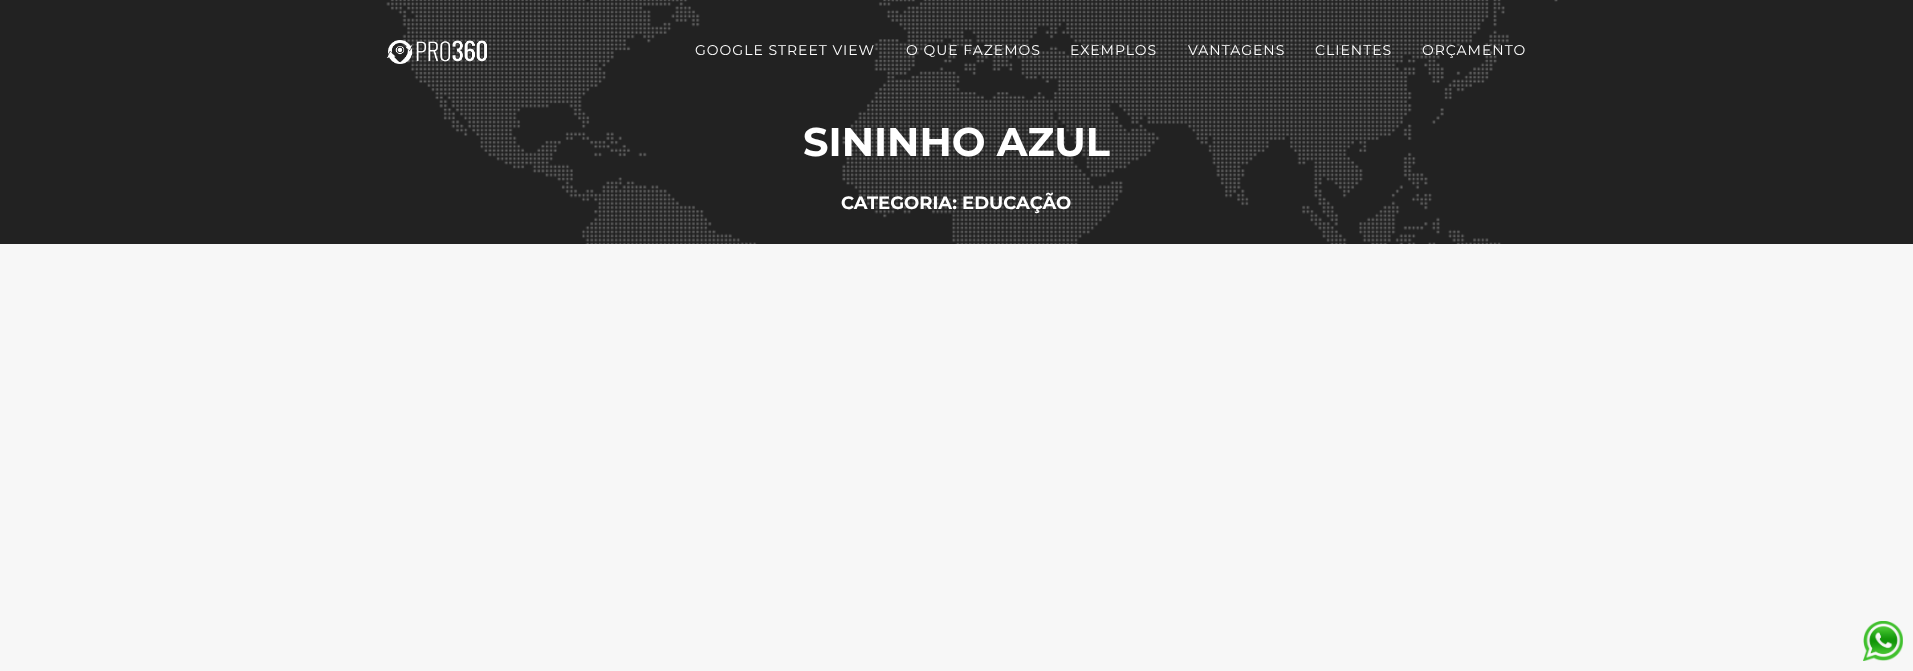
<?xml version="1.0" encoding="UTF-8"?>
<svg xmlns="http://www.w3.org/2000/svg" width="1913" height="671">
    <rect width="100%" height="100%" fill="#222222"/>
    <image x="386" y="0" width="1172" height="244" href="img_02.png"/>
    <image x="386" y="40" width="101" height="24" href="img_01.png"/>
    <text x="695" y="55" font-family="Montserrat" font-size="14" letter-spacing="1" fill="#FFFFFF">GOOGLE STREET VIEW</text>
    <text x="906" y="55" font-family="Montserrat" font-size="14" letter-spacing="1" fill="#FFFFFF">O QUE FAZEMOS</text>
    <text x="1070" y="55" font-family="Montserrat" font-size="14" letter-spacing="1" fill="#FFFFFF">EXEMPLOS</text>
    <text x="1188" y="55" font-family="Montserrat" font-size="14" letter-spacing="1" fill="#FFFFFF">VANTAGENS</text>
    <text x="1315" y="55" font-family="Montserrat" font-size="14" letter-spacing="1" fill="#FFFFFF">CLIENTES</text>
    <text x="1422" y="55" font-family="Montserrat" font-size="14" letter-spacing="1" fill="#FFFFFF">ORÇAMENTO</text>
    <text x="803" y="156" font-family="Montserrat" font-size="40" font-weight="700" fill="#FFFFFF">SININHO AZUL</text>
    <text x="841" y="209" font-family="Montserrat" font-size="18" font-weight="700" fill="#FFFFFF">CATEGORIA: EDUCAÇÃO</text>
    <rect x="0" y="244" width="1913" height="427" fill="#F7F7F7"/>
    <image x="1863" y="621" width="40" height="40" href="img_03.png"/>
</svg>
